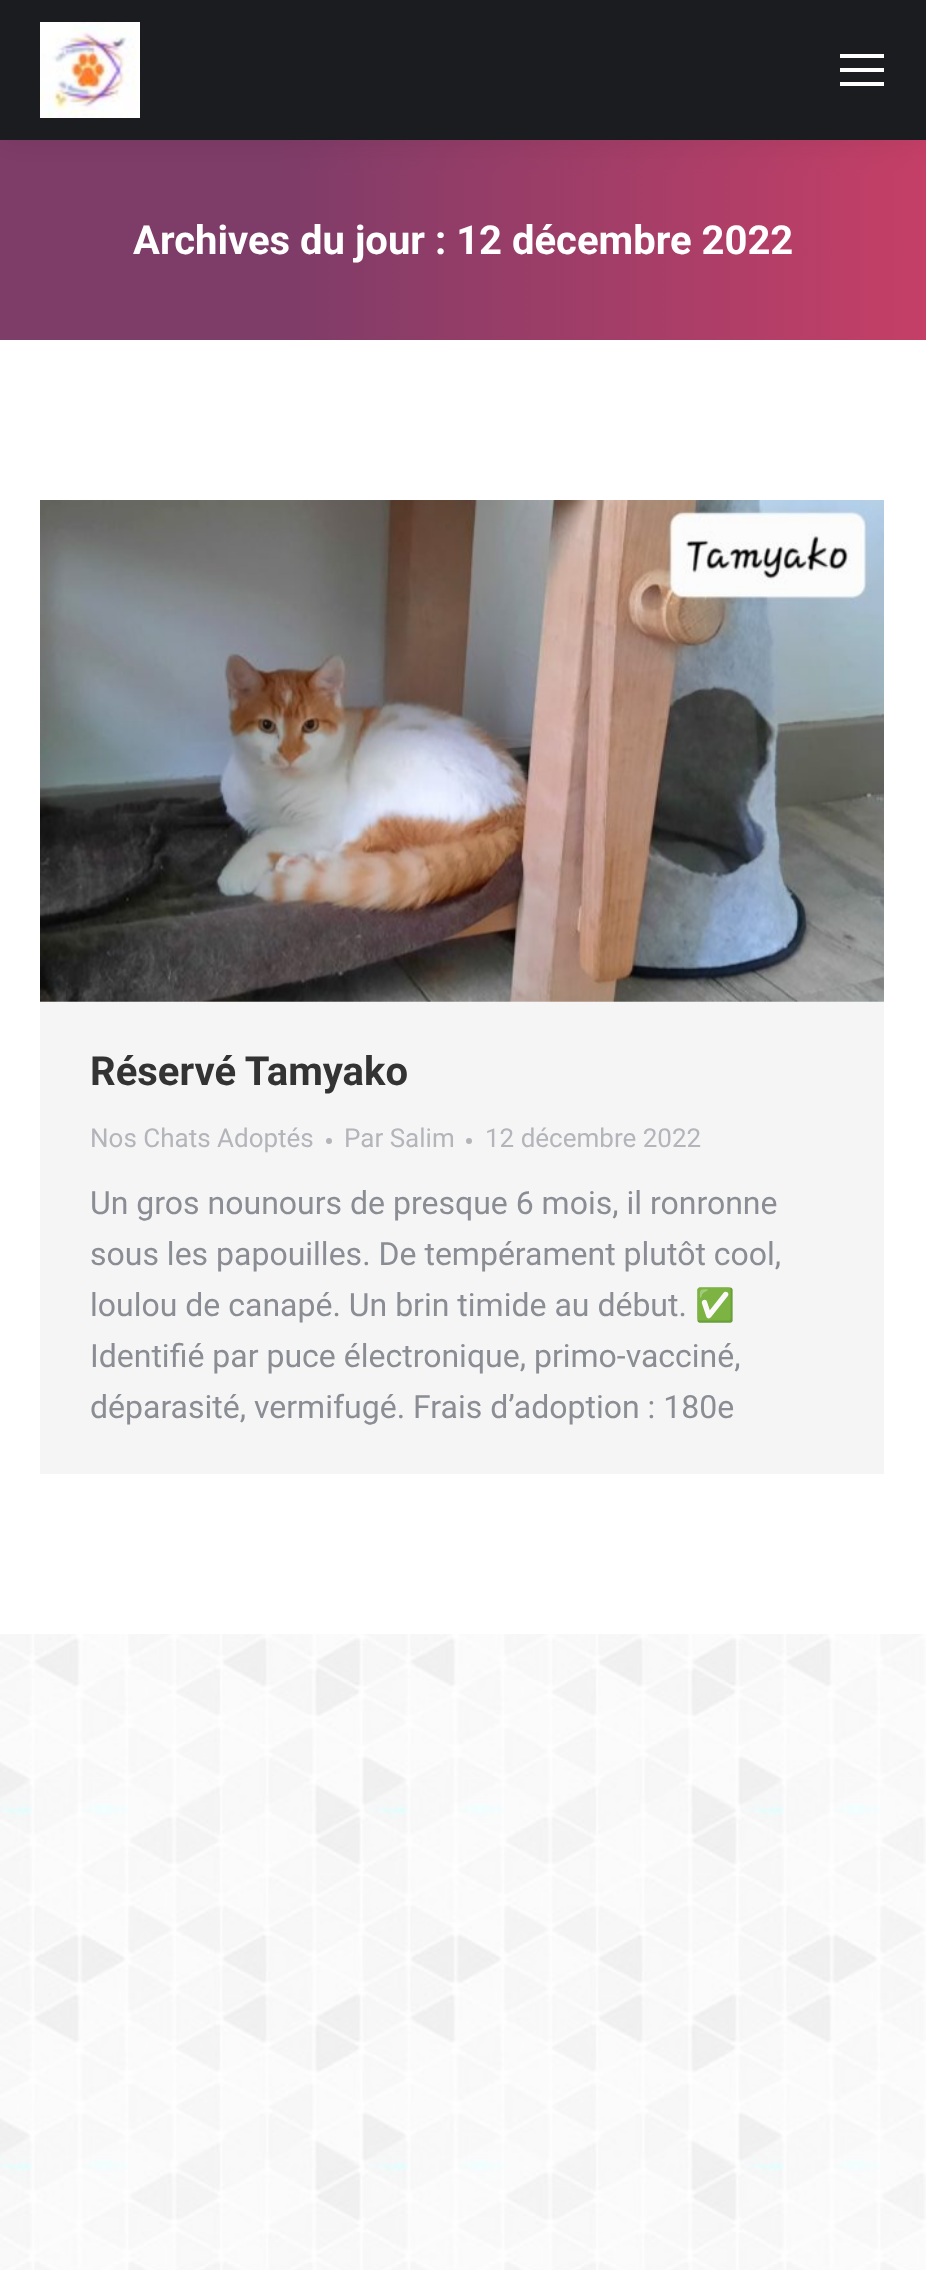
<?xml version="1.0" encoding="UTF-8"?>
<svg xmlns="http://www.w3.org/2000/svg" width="926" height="2270">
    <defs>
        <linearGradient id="g1" gradientUnits="userSpaceOnUse" x1="0" y1="240" x2="926" y2="240"><stop offset="0.3" stop-color="#7E3C68"/><stop offset="1" stop-color="#C53F67"/></linearGradient>
        <filter id="blur1" x="-50%" y="-200%" width="200%" height="500%"><feGaussianBlur stdDeviation="15"/></filter>
    </defs>
    <rect width="100%" height="100%" fill="#FFFFFF"/>
    <image x="0" y="1634" width="926" height="636" href="img_01.png"/>
    <rect x="0" y="140" width="926" height="200" fill="url(#g1)"/>
    <rect x="-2" y="-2" width="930" height="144" fill="#000000" fill-opacity="0.07" filter="url(#blur1)"/>
    <rect x="0" y="0" width="926" height="140" fill="#1A1C20"/>
    <image x="40" y="22" width="100" height="96" href="img_02.png"/>
    <rect x="840" y="54" width="44" height="4" fill="#FFFFFF"/>
    <rect x="840" y="68" width="44" height="4" fill="#FFFFFF"/>
    <rect x="840" y="82" width="44" height="4" fill="#FFFFFF"/>
    <text x="133" y="254" font-family="Roboto" font-size="40" font-weight="700" fill="#FFFFFF">Archives du jour : 12 décembre 2022</text>
    <rect x="40" y="1001" width="844" height="473" fill="#F5F5F5"/>
    <image x="40" y="500" width="844" height="502" href="img_03.png"/>
    <text x="90" y="1085" font-family="Roboto" font-size="40" font-weight="700" fill="#333333">Réservé Tamyako</text>
    <text x="90" y="1147" font-family="Roboto" font-size="26" fill="#B4B5BB">Nos Chats Adoptés</text>
    <circle cx="329" cy="1141" r="3" fill="#B4B5BB"/>
    <text x="344" y="1147" font-family="Roboto" font-size="26" fill="#B4B5BB">Par Salim</text>
    <circle cx="469" cy="1141" r="3" fill="#B4B5BB"/>
    <text x="485" y="1147" font-family="Roboto" font-size="26" fill="#B4B5BB">12 décembre 2022</text>
    <text font-family="Roboto" font-size="32" fill="#8B8D94">
        <tspan x="90" y="1214">Un gros nounours de presque 6 mois, il ronronne</tspan>
        <tspan x="90" y="1265">sous les papouilles. De tempérament plutôt cool,</tspan>
        <tspan x="90" y="1316">loulou de canapé. Un brin timide au début.</tspan>
    </text>
    <text x="695" y="1316" font-family="Noto Color Emoji" font-size="32" fill="#8B8D94">✅️</text>
    <text font-family="Roboto" font-size="32" fill="#8B8D94">
        <tspan x="90" y="1367">Identifié par puce électronique, primo-vacciné,</tspan>
        <tspan x="90" y="1418">déparasité, vermifugé. Frais d’adoption : 180e</tspan>
    </text>
</svg>
